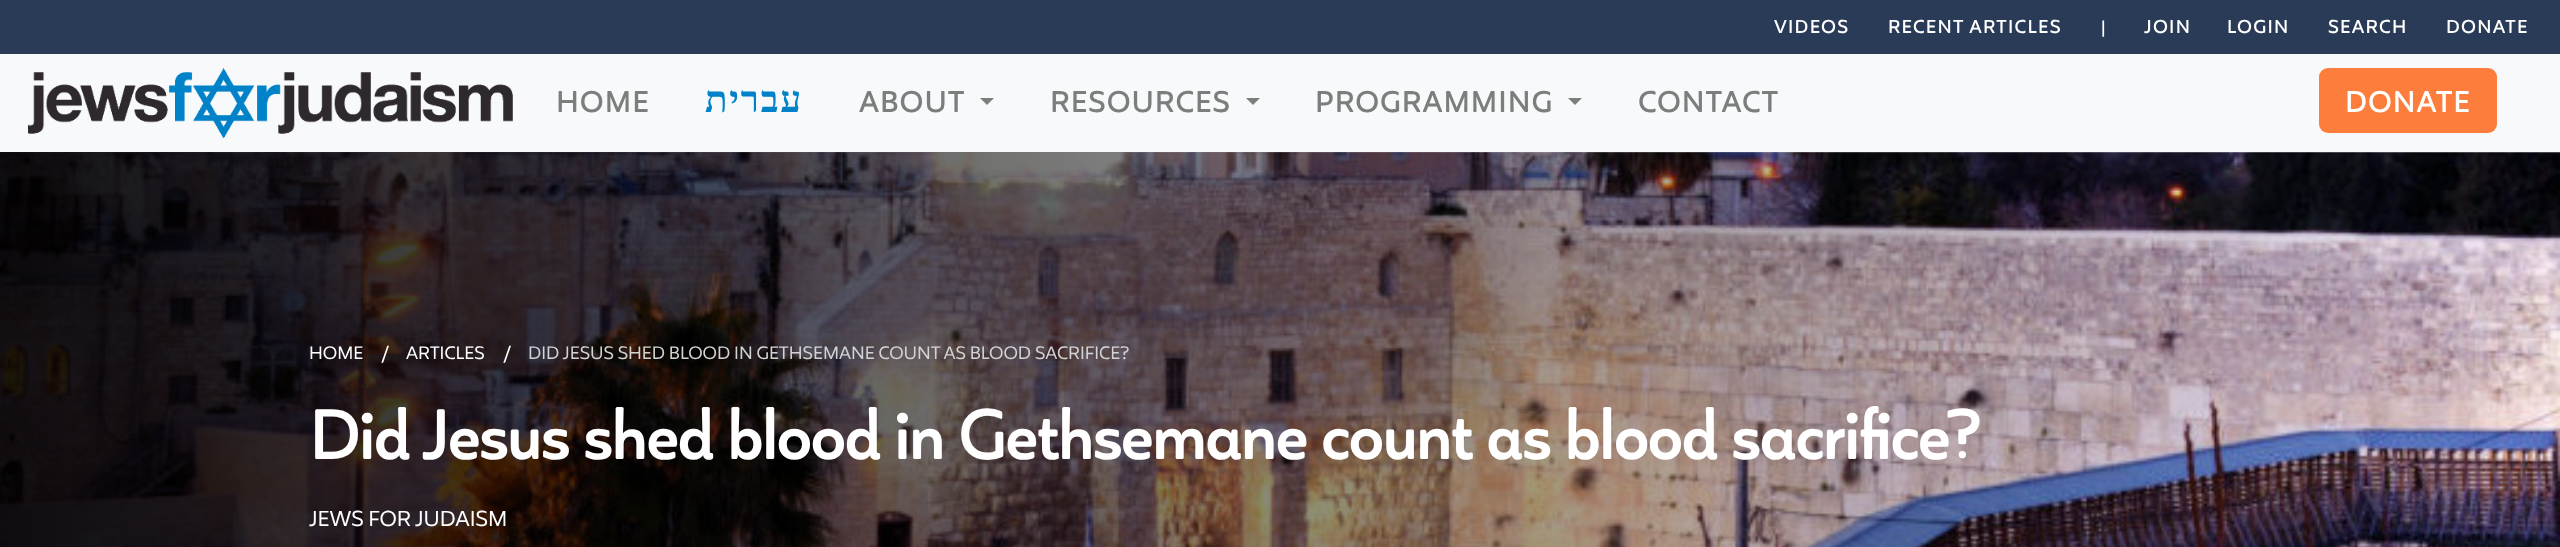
<?xml version="1.0" encoding="UTF-8"?>
<svg xmlns="http://www.w3.org/2000/svg" width="2560" height="547">
    <defs>
        <linearGradient id="g1" gradientUnits="userSpaceOnUse" x1="0" y1="459" x2="2560" y2="458"><stop offset="0" stop-color="#000000" stop-opacity="0.9"/><stop offset="1" stop-color="#000000" stop-opacity="0"/></linearGradient>
    </defs>
    <rect width="100%" height="100%" fill="#FFFFFF"/>
    <rect x="0" y="0" width="2560" height="54" fill="#293B57"/>
    <text x="1774" y="33" font-family="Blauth" font-size="17.5" font-weight="700" letter-spacing="1.75" fill="#FFFFFF">VIDEOS</text>
    <text x="1888" y="33" font-family="Blauth" font-size="17.5" font-weight="700" letter-spacing="1.75" fill="#FFFFFF">RECENT ARTICLES</text>
    <text x="2101" y="33" font-family="Blauth" font-size="17.5" fill="#FFFFFF">|</text>
    <text x="2144" y="33" font-family="Blauth" font-size="17.5" font-weight="700" letter-spacing="1.75" fill="#FFFFFF">JOIN</text>
    <text x="2227" y="33" font-family="Blauth" font-size="17.5" font-weight="700" letter-spacing="1.75" fill="#FFFFFF">LOGIN</text>
    <text x="2328" y="33" font-family="Blauth" font-size="17.5" font-weight="700" letter-spacing="1.75" fill="#FFFFFF">SEARCH</text>
    <text x="2446" y="33" font-family="Blauth" font-size="17.5" font-weight="700" letter-spacing="1.75" fill="#FFFFFF">DONATE</text>
    <rect x="0" y="54" width="2560" height="98" fill="#F8F9FA"/>
    <image x="28" y="68" width="485" height="70" href="img_01.png"/>
    <text x="556" y="112" font-family="Blauth" font-size="28" font-weight="700" letter-spacing="1.75" fill="#7C7D7D">HOME</text>
    <text x="803" y="112" font-family="Liberation Serif" font-size="37" font-weight="700" letter-spacing="1.75" direction="rtl" fill="#0082C8">עברית</text>
    <text x="859" y="112" font-family="Blauth" font-size="28" font-weight="700" letter-spacing="1.75" fill="#7C7D7D">ABOUT</text>
    <path d="M 980 98 H 994 L 987 105 Z" fill="#7C7D7D"/>
    <text x="1050" y="112" font-family="Blauth" font-size="28" font-weight="700" letter-spacing="1.75" fill="#7C7D7D">RESOURCES</text>
    <path d="M 1246 98 H 1260 L 1253 105 Z" fill="#7C7D7D"/>
    <text x="1315" y="112" font-family="Blauth" font-size="28" font-weight="700" letter-spacing="1.75" fill="#7C7D7D">PROGRAMMING</text>
    <path d="M 1568 98 H 1582 L 1575 105 Z" fill="#7C7D7D"/>
    <text x="1638" y="112" font-family="Blauth" font-size="28" font-weight="700" letter-spacing="1.75" fill="#7C7D7D">CONTACT</text>
    <rect x="2319" y="68" width="178" height="65" rx="9" fill="#FD7E3C"/>
    <text x="2345" y="112" font-family="Blauth" font-size="28" font-weight="700" letter-spacing="1.75" fill="#FFFFFF">DONATE</text>
    <image x="0" y="152" width="2560" height="395" href="img_02.png"/>
    <rect x="0" y="152" width="2499" height="395" fill="url(#g1)"/>
    <text x="309" y="359" font-family="Blauth" font-size="17.5" fill="#FFFFFF">HOME</text>
    <text x="381" y="359" font-family="Blauth" font-size="17.5" fill="#FFFFFF">/</text>
    <text x="406" y="359" font-family="Blauth" font-size="17.5" fill="#FFFFFF">ARTICLES</text>
    <text x="503" y="359" font-family="Blauth" font-size="17.5" fill="#FFFFFF">/</text>
    <text x="528" y="359" font-family="Blauth" font-size="17.5" fill="#D3D3D3">DID JESUS SHED BLOOD IN GETHSEMANE COUNT AS BLOOD SACRIFICE?</text>
    <text x="309" y="459" font-family="Blauth" font-size="66.5" font-weight="700" fill="#FFFFFF">Did Jesus shed blood in Gethsemane count as blood sacrifice?</text>
    <text x="309" y="526" font-family="Blauth" font-size="21" fill="#FFFFFF">JEWS FOR JUDAISM</text>
</svg>
